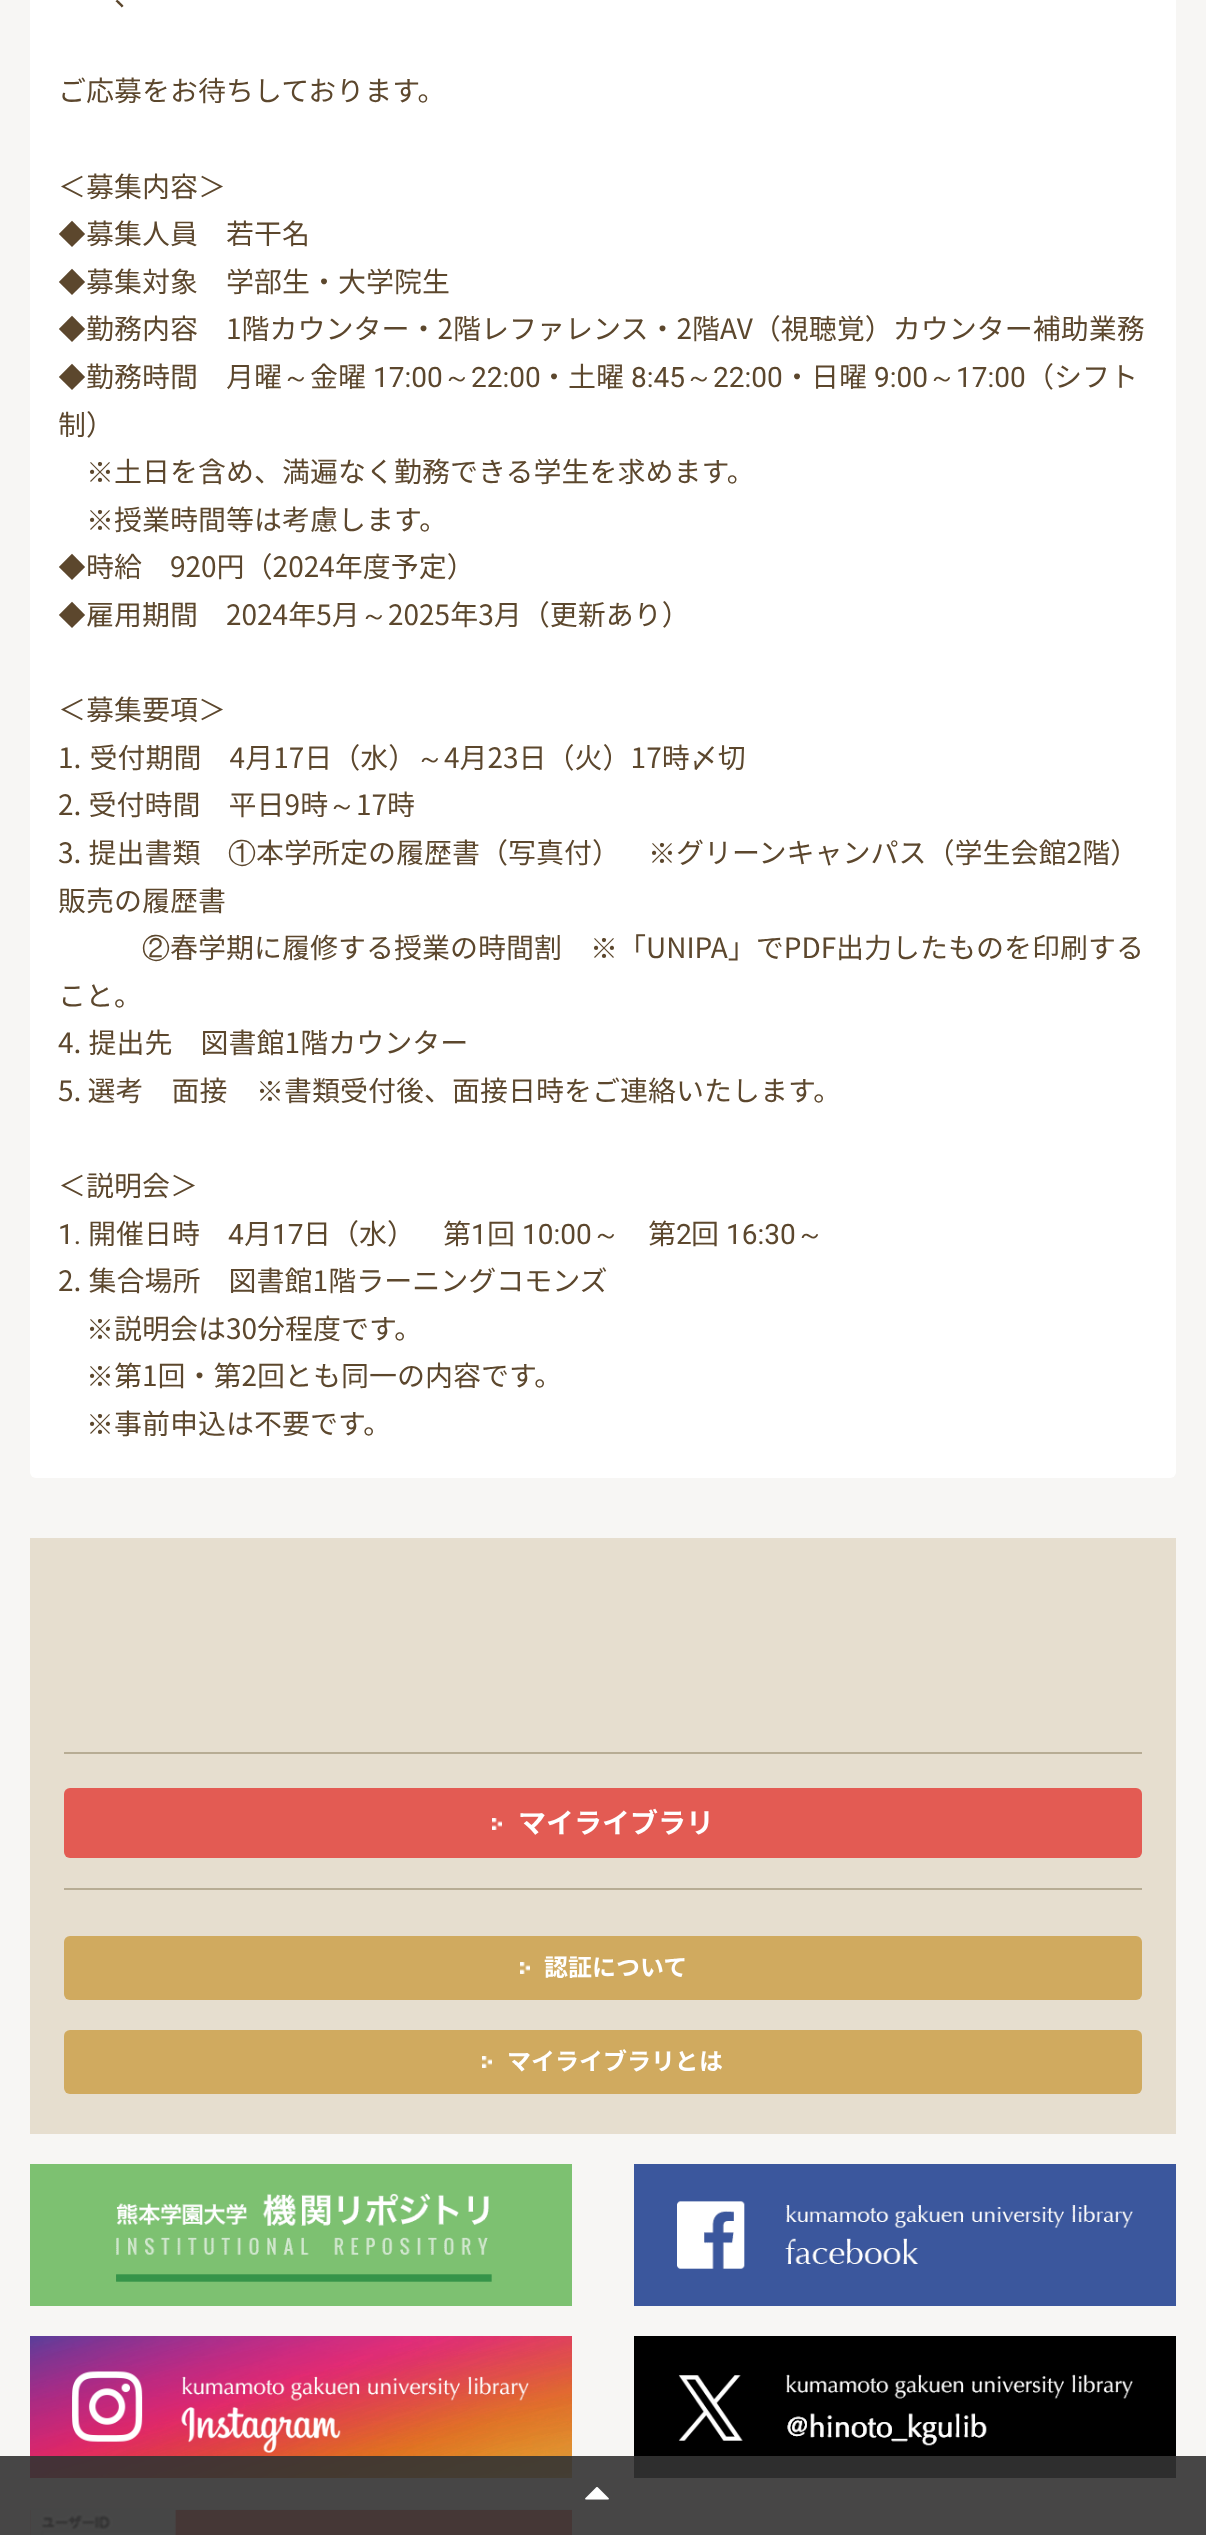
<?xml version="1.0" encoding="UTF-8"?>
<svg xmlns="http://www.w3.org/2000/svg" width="1206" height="2535">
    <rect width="100%" height="100%" fill="#F7F6F4"/>
    <rect x="30" y="-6" width="1146" height="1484" rx="6" fill="#FFFFFF"/>
    <text x="114" y="6" font-family="Noto Sans JP" font-size="28" fill="#5C472D">、</text>
    <text x="58" y="101" font-family="Noto Sans JP" font-size="28" fill="#5C472D">ご応募をお待ちしております。</text>
    <text x="58" y="197" font-family="Noto Sans JP" font-size="28" fill="#5C472D">＜募集内容＞</text>
    <text x="58" y="244" font-family="WenQuanYi Zen Hei" font-size="28" font-weight="500" fill="#5C472D">◆</text>
    <text x="86" y="244" font-family="Noto Sans JP" font-size="28" fill="#5C472D">募集人員　若干名</text>
    <text x="58" y="292" font-family="WenQuanYi Zen Hei" font-size="28" font-weight="500" fill="#5C472D">◆</text>
    <text x="86" y="292" font-family="Noto Sans JP" font-size="28" fill="#5C472D">募集対象　学部生・大学院生</text>
    <text x="58" y="339" font-family="WenQuanYi Zen Hei" font-size="28" font-weight="500" fill="#5C472D">◆</text>
    <text x="86" y="339" font-family="Noto Sans JP" font-size="28" fill="#5C472D">勤務内容　1階カウンター・2階レファレンス・2階AV（視聴覚）カウンター補助業務</text>
    <text x="58" y="387" font-family="WenQuanYi Zen Hei" font-size="28" font-weight="500" fill="#5C472D">◆</text>
    <text x="86" y="387" font-family="Noto Sans JP" font-size="28" fill="#5C472D">勤務時間　月曜</text>
    <text x="282" y="387" font-family="WenQuanYi Zen Hei" font-size="28" font-weight="500" fill="#5C472D">～</text>
    <text x="310" y="387" font-family="Noto Sans JP" font-size="28" fill="#5C472D">金曜</text>
    <text x="373" y="387" font-family="Roboto" font-size="28" fill="#5C472D">17:00</text>
    <text x="443" y="387" font-family="WenQuanYi Zen Hei" font-size="28" font-weight="500" fill="#5C472D">～</text>
    <text x="471" y="387" font-family="Roboto" font-size="28" fill="#5C472D">22:00</text>
    <text x="540" y="387" font-family="Noto Sans JP" font-size="28" fill="#5C472D">・土曜</text>
    <text x="631" y="387" font-family="Roboto" font-size="28" fill="#5C472D">8:45</text>
    <text x="685" y="387" font-family="WenQuanYi Zen Hei" font-size="28" font-weight="500" fill="#5C472D">～</text>
    <text x="713" y="387" font-family="Roboto" font-size="28" fill="#5C472D">22:00</text>
    <text x="783" y="387" font-family="Noto Sans JP" font-size="28" fill="#5C472D">・日曜</text>
    <text x="874" y="387" font-family="Roboto" font-size="28" fill="#5C472D">9:00</text>
    <text x="928" y="387" font-family="WenQuanYi Zen Hei" font-size="28" font-weight="500" fill="#5C472D">～</text>
    <text x="956" y="387" font-family="Roboto" font-size="28" fill="#5C472D">17:00</text>
    <text x="1026" y="387" font-family="Noto Sans JP" font-size="28" fill="#5C472D">（シフト</text>
    <text x="58" y="435" font-family="Noto Sans JP" font-size="28" fill="#5C472D">制）</text>
    <text x="86" y="482" font-family="WenQuanYi Zen Hei" font-size="28" font-weight="500" fill="#5C472D">※</text>
    <text x="114" y="482" font-family="Noto Sans JP" font-size="28" fill="#5C472D">土日を含め、満遍なく勤務できる学生を求めます。</text>
    <text x="86" y="530" font-family="WenQuanYi Zen Hei" font-size="28" font-weight="500" fill="#5C472D">※</text>
    <text x="114" y="530" font-family="Noto Sans JP" font-size="28" fill="#5C472D">授業時間等は考慮します。</text>
    <text x="58" y="577" font-family="WenQuanYi Zen Hei" font-size="28" font-weight="500" fill="#5C472D">◆</text>
    <text x="86" y="577" font-family="Noto Sans JP" font-size="28" fill="#5C472D">時給　920円（2024年度予定）</text>
    <text x="58" y="625" font-family="WenQuanYi Zen Hei" font-size="28" font-weight="500" fill="#5C472D">◆</text>
    <text x="86" y="625" font-family="Noto Sans JP" font-size="28" fill="#5C472D">雇用期間　2024年5月</text>
    <text x="360" y="625" font-family="WenQuanYi Zen Hei" font-size="28" font-weight="500" fill="#5C472D">～</text>
    <text x="388" y="625" font-family="Noto Sans JP" font-size="28" fill="#5C472D">2025年3月（更新あり）</text>
    <text font-family="Noto Sans JP" font-size="28" fill="#5C472D">
        <tspan x="58" y="720">＜募集要項＞</tspan>
        <tspan x="58" y="768" word-spacing="2">1. 受付期間　4月17日（水）</tspan>
    </text>
    <text x="416" y="768" font-family="WenQuanYi Zen Hei" font-size="28" font-weight="500" fill="#5C472D">～</text>
    <text x="444" y="768" font-family="Noto Sans JP" font-size="28" fill="#5C472D">4月23日（火）17時〆切</text>
    <text x="58" y="815" word-spacing="1" font-family="Noto Sans JP" font-size="28" fill="#5C472D">2. 受付時間　平日9時</text>
    <text x="328" y="815" font-family="WenQuanYi Zen Hei" font-size="28" font-weight="500" fill="#5C472D">～</text>
    <text x="356" y="815" font-family="Noto Sans JP" font-size="28" fill="#5C472D">17時</text>
    <text x="58" y="863" word-spacing="1" font-family="Noto Sans JP" font-size="28" fill="#5C472D">3. 提出書類</text>
    <text x="228" y="863" font-family="WenQuanYi Zen Hei" font-size="28" font-weight="500" fill="#5C472D">①</text>
    <text x="256" y="863" font-family="Noto Sans JP" font-size="28" fill="#5C472D">本学所定の履歴書（写真付）</text>
    <text x="648" y="863" font-family="WenQuanYi Zen Hei" font-size="28" font-weight="500" fill="#5C472D">※</text>
    <text x="676" y="863" font-family="Noto Sans JP" font-size="28" fill="#5C472D">グリーンキャンパス（学生会館2階）</text>
    <text x="58" y="911" font-family="Noto Sans JP" font-size="28" fill="#5C472D">販売の履歴書</text>
    <text x="142" y="958" font-family="WenQuanYi Zen Hei" font-size="28" font-weight="500" fill="#5C472D">②</text>
    <text x="170" y="958" font-family="Noto Sans JP" font-size="28" fill="#5C472D">春学期に履修する授業の時間割</text>
    <text x="590" y="958" font-family="WenQuanYi Zen Hei" font-size="28" font-weight="500" fill="#5C472D">※</text>
    <text x="618" y="958" font-family="Noto Sans JP" font-size="28" fill="#5C472D">「UNIPA」でPDF出力したものを印刷する</text>
    <text font-family="Noto Sans JP" font-size="28" fill="#5C472D">
        <tspan x="58" y="1006">こと。</tspan>
        <tspan x="58" y="1053" word-spacing="1">4. 提出先　図書館1階カウンター</tspan>
        <tspan x="58" y="1101">5. 選考　面接</tspan>
    </text>
    <text x="256" y="1101" font-family="WenQuanYi Zen Hei" font-size="28" font-weight="500" fill="#5C472D">※</text>
    <text x="284" y="1101" font-family="Noto Sans JP" font-size="28" fill="#5C472D">書類受付後、面接日時をご連絡いたします。</text>
    <text x="58" y="1196" font-family="Noto Sans JP" font-size="28" fill="#5C472D">＜説明会＞</text>
    <text x="58" y="1244" font-family="Roboto" font-size="28" fill="#5C472D">1.</text>
    <text x="88" y="1244" font-family="Noto Sans JP" font-size="28" fill="#5C472D">開催日時</text>
    <text x="228" y="1244" font-family="Roboto" font-size="28" fill="#5C472D">4</text>
    <text x="244" y="1244" font-family="Noto Sans JP" font-size="28" fill="#5C472D">月</text>
    <text x="272" y="1244" font-family="Roboto" font-size="28" fill="#5C472D">17</text>
    <text x="303" y="1244" font-family="Noto Sans JP" font-size="28" fill="#5C472D">日（水）　第</text>
    <text x="471" y="1244" font-family="Roboto" font-size="28" fill="#5C472D">1</text>
    <text x="487" y="1244" font-family="Noto Sans JP" font-size="28" fill="#5C472D">回</text>
    <text x="522" y="1244" font-family="Roboto" font-size="28" fill="#5C472D">10:00</text>
    <text x="592" y="1244" font-family="WenQuanYi Zen Hei" font-size="28" font-weight="500" fill="#5C472D">～</text>
    <text x="648" y="1244" font-family="Noto Sans JP" font-size="28" fill="#5C472D">第</text>
    <text x="676" y="1244" font-family="Roboto" font-size="28" fill="#5C472D">2</text>
    <text x="691" y="1244" font-family="Noto Sans JP" font-size="28" fill="#5C472D">回</text>
    <text x="726" y="1244" font-family="Roboto" font-size="28" fill="#5C472D">16:30</text>
    <text x="796" y="1244" font-family="WenQuanYi Zen Hei" font-size="28" font-weight="500" fill="#5C472D">～</text>
    <text x="58" y="1291" word-spacing="1" font-family="Noto Sans JP" font-size="28" fill="#5C472D">2. 集合場所　図書館1階ラーニングコモンズ</text>
    <text x="86" y="1339" font-family="WenQuanYi Zen Hei" font-size="28" font-weight="500" fill="#5C472D">※</text>
    <text x="114" y="1339" font-family="Noto Sans JP" font-size="28" fill="#5C472D">説明会は30分程度です。</text>
    <text x="86" y="1386" font-family="WenQuanYi Zen Hei" font-size="28" font-weight="500" fill="#5C472D">※</text>
    <text x="114" y="1386" font-family="Noto Sans JP" font-size="28" fill="#5C472D">第1回・第2回とも同一の内容です。</text>
    <text x="86" y="1434" font-family="WenQuanYi Zen Hei" font-size="28" font-weight="500" fill="#5C472D">※</text>
    <text x="114" y="1434" font-family="Noto Sans JP" font-size="28" fill="#5C472D">事前申込は不要です。</text>
    <rect x="30" y="1538" width="1146" height="596" fill="#E6DECF"/>
    <rect x="64" y="1752" width="1078" height="2" fill="#B7AC94"/>
    <rect x="64" y="1788" width="1078" height="70" rx="6" fill="#E35B53"/>
    <image x="492" y="1818" width="10" height="12" href="img_01.png"/>
    <text x="518" y="1833" font-family="Noto Sans JP" font-size="28" font-weight="700" fill="#FFFFFF">マイライブラリ</text>
    <rect x="64" y="1888" width="1078" height="2" fill="#B7AC94"/>
    <rect x="64" y="1936" width="1078" height="64" rx="6" fill="#D0AA5F"/>
    <image x="520" y="1962" width="10" height="12" href="img_02.png"/>
    <text x="544" y="1976" font-family="Noto Sans JP" font-size="24" font-weight="700" fill="#FFFFFF">認証について</text>
    <rect x="64" y="2030" width="1078" height="64" rx="6" fill="#D0AA5F"/>
    <image x="482" y="2056" width="10" height="12" href="img_02.png"/>
    <text x="507" y="2070" font-family="Noto Sans JP" font-size="24" font-weight="700" fill="#FFFFFF">マイライブラリとは</text>
    <image x="30" y="2164" width="542" height="142" href="img_03.png"/>
    <image x="634" y="2164" width="542" height="142" href="img_04.png"/>
    <image x="30" y="2336" width="542" height="142" href="img_05.png"/>
    <image x="634" y="2336" width="542" height="142" href="img_06.png"/>
    <image x="30" y="2508" width="542" height="27" href="img_07.png"/>
    <rect x="0" y="2456" width="1206" height="79" fill="#333333" fill-opacity="0.9"/>
    <image x="585" y="2487" width="24" height="13" href="img_08.png"/>
</svg>
